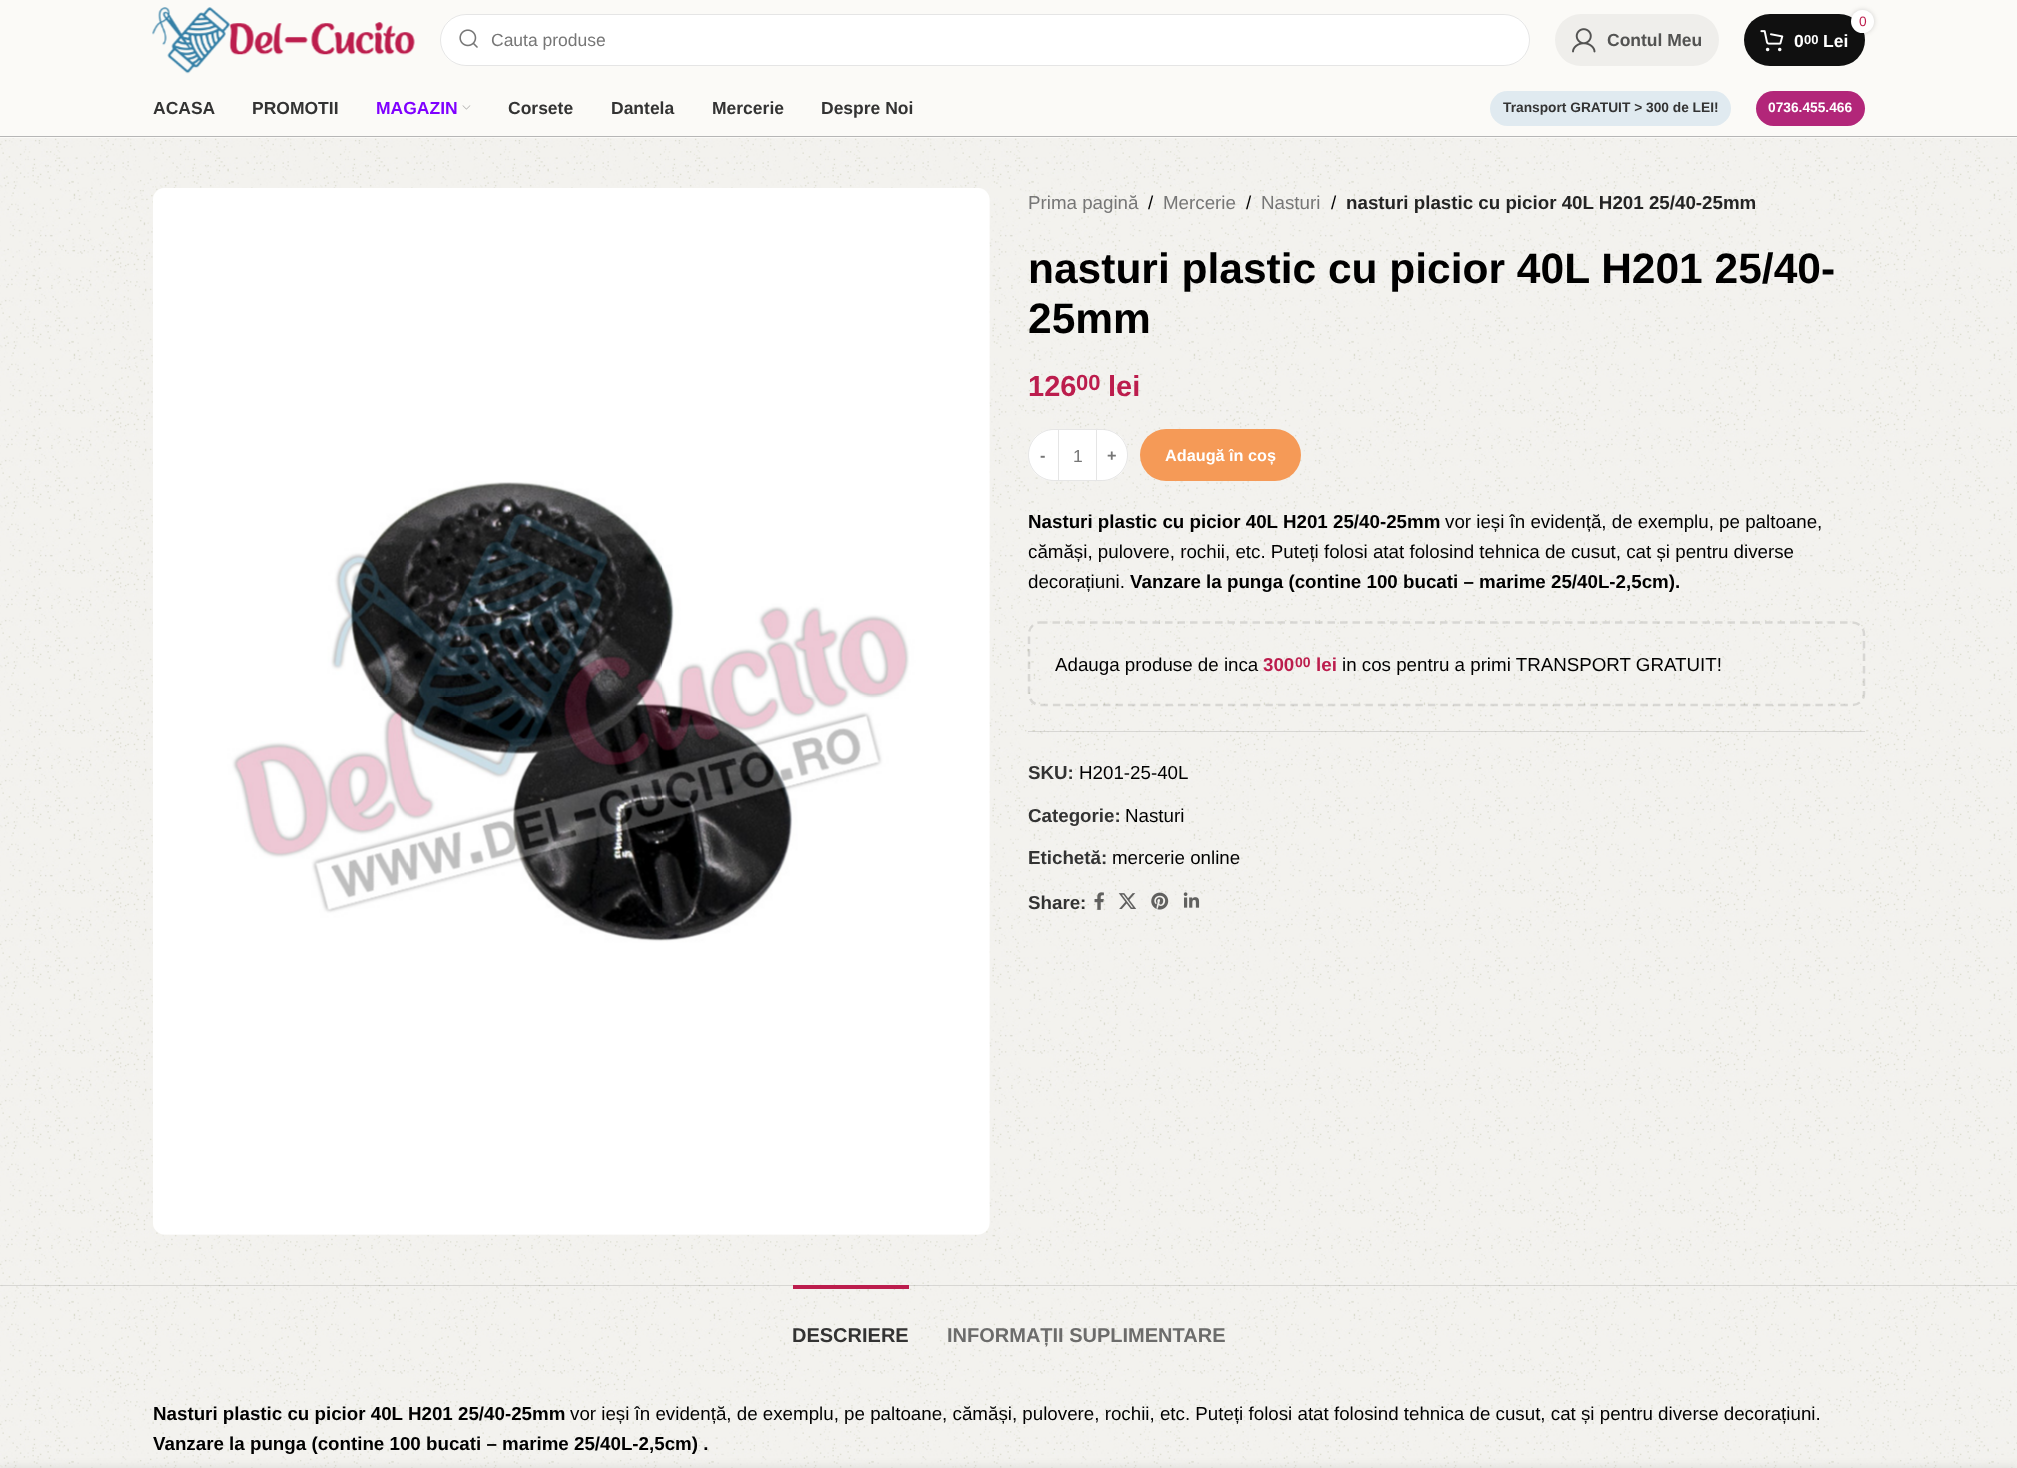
<?xml version="1.0" encoding="UTF-8"?>
<svg xmlns="http://www.w3.org/2000/svg" width="2017" height="1468">
    <defs>
        <filter id="blur1" x="-50%" y="-200%" width="200%" height="500%"><feGaussianBlur stdDeviation="2.5"/></filter>
        <filter id="blur2" x="-50%" y="-200%" width="200%" height="500%"><feGaussianBlur stdDeviation="5.5"/></filter>
    </defs>
    <rect width="100%" height="100%" fill="#FFFFFF"/>
    <rect x="0" y="0" width="2017" height="138" fill="#FBFAF7"/>
    <image x="152" y="7" width="263" height="67" href="img_01.png"/>
    <rect x="440" y="14" width="1090" height="52" rx="26" fill="#FFFFFF"/>
    <rect x="440.5" y="14.5" width="1089" height="51" rx="25.5" fill="none" stroke="#000000" stroke-opacity="0.1"/>
    <image x="459" y="29" width="19" height="19" href="img_02.png"/>
    <text x="491" y="46" font-family="Liberation Sans" font-size="17.5" fill="#767676">Cauta produse</text>
    <rect x="1555" y="14" width="164" height="52" rx="26" fill="#EFEEEB"/>
    <image x="1572" y="28" width="24" height="25" href="img_03.png"/>
    <text x="1607" y="46" font-family="Liberation Sans" font-size="17.5" font-weight="700" fill="#535352">Contul Meu</text>
    <rect x="1744" y="14" width="121" height="52" rx="26" fill="#101010"/>
    <rect x="1851" y="10" width="23" height="23" rx="11.5" fill="#000000" fill-opacity="0.17" filter="url(#blur1)"/>
    <circle cx="1862.5" cy="21.5" r="11.5" fill="#FFFFFF"/>
    <text x="1859" y="26" font-family="Liberation Sans" font-size="13.75" fill="#BC1D4D">0</text>
    <image x="1760" y="30" width="24" height="22" href="img_04.png"/>
    <text x="1794" y="47" font-family="Liberation Sans" font-size="17.5" font-weight="700" fill="#FFFFFF">0</text>
    <text x="1804" y="44" font-family="Liberation Sans" font-size="13" font-weight="700" fill="#FFFFFF">00</text>
    <text x="1823" y="47" font-family="Liberation Sans" font-size="17.5" font-weight="700" fill="#FFFFFF">Lei</text>
    <rect x="0" y="136" width="2017" height="1" fill="#B6B6B6"/>
    <text x="153" y="114" font-family="Liberation Sans" font-size="17.5" font-weight="700" fill="#333333">ACASA</text>
    <text x="252" y="114" font-family="Liberation Sans" font-size="17.5" font-weight="700" fill="#333333">PROMOTII</text>
    <text x="376" y="114" font-family="Liberation Sans" font-size="17.5" font-weight="700" fill="#7F00FF">MAGAZIN</text>
    <image x="462" y="105" width="9" height="5" href="img_05.png"/>
    <text x="508" y="114" font-family="Liberation Sans" font-size="17.5" font-weight="700" fill="#333333">Corsete</text>
    <text x="611" y="114" font-family="Liberation Sans" font-size="17.5" font-weight="700" fill="#333333">Dantela</text>
    <text x="712" y="114" font-family="Liberation Sans" font-size="17.5" font-weight="700" fill="#333333">Mercerie</text>
    <text x="821" y="114" font-family="Liberation Sans" font-size="17.5" font-weight="700" fill="#333333">Despre Noi</text>
    <rect x="1490" y="91" width="241" height="35" rx="17.5" fill="#E0EAF0"/>
    <text x="1503" y="112" font-family="Liberation Sans" font-size="13.75" font-weight="700" fill="#333333">Transport GRATUIT &gt; 300 de LEI!</text>
    <rect x="1756" y="91" width="109" height="35" rx="17.5" fill="#B22679"/>
    <text x="1768" y="112" font-family="Liberation Sans" font-size="13.75" font-weight="700" fill="#FFFFFF">0736.455.466</text>
    <image x="0" y="138" width="2017" height="1330" href="img_06.png"/>
    <image x="153" y="188" width="837" height="1047" href="img_07.png"/>
    <text x="1028" y="209" font-family="Liberation Sans" font-size="18.75" fill="#767676">Prima pagină</text>
    <text x="1148" y="209" font-family="Liberation Sans" font-size="18.75" fill="#000000">/</text>
    <text x="1163" y="209" font-family="Liberation Sans" font-size="18.75" fill="#767676">Mercerie</text>
    <text x="1246" y="209" font-family="Liberation Sans" font-size="18.75" fill="#000000">/</text>
    <text x="1261" y="209" font-family="Liberation Sans" font-size="18.75" fill="#767676">Nasturi</text>
    <text x="1331" y="209" font-family="Liberation Sans" font-size="18.75" fill="#000000">/</text>
    <text x="1346" y="209" font-family="Liberation Sans" font-size="18.75" font-weight="700" fill="#242424">nasturi plastic cu picior 40L H201 25/40-25mm</text>
    <text font-family="Liberation Sans" font-size="42.5" font-weight="700" fill="#000000">
        <tspan x="1028" y="283">nasturi plastic cu picior 40L H201 25/40-</tspan>
        <tspan x="1028" y="333">25mm</tspan>
    </text>
    <text x="1028" y="396" font-family="Liberation Sans" font-size="29" font-weight="700" fill="#BC1D4D">126</text>
    <text x="1076" y="390" font-family="Liberation Sans" font-size="22" font-weight="700" fill="#BC1D4D">00</text>
    <text x="1108" y="396" font-family="Liberation Sans" font-size="29" font-weight="700" fill="#BC1D4D">lei</text>
    <path d="M 1054 429 H 1059 V 481 H 1054 C 1039.5 481 1028 469.5 1028 455 C 1028 440.5 1039.5 429 1054 429 Z" fill="#FFFFFF"/>
    <path d="M 1054 429.5 H 1058.5 V 480.5 H 1054 C 1040 480.5 1028.5 469 1028.5 455 C 1028.5 441 1040 429.5 1054 429.5 Z" fill="none" stroke="#000000" stroke-opacity="0.1"/>
    <text x="1040" y="461" font-family="Liberation Sans" font-size="16.25" font-weight="700" fill="#767676">-</text>
    <rect x="1059" y="430" width="37" height="50" fill="#FFFFFF"/>
    <rect x="1059" y="429" width="37" height="1" fill="#E6E6E6"/>
    <rect x="1059" y="480" width="37" height="1" fill="#E6E6E6"/>
    <text x="1073" y="462" font-family="Liberation Sans" font-size="17.5" fill="#767676">1</text>
    <path d="M 1096 429 H 1102 C 1116.5 429 1128 440.5 1128 455 C 1128 469.5 1116.5 481 1102 481 H 1096 Z" fill="#FFFFFF"/>
    <path d="M 1096.5 429.5 H 1102 C 1116 429.5 1127.5 441 1127.5 455 C 1127.5 469 1116 480.5 1102 480.5 H 1096.5 Z" fill="none" stroke="#000000" stroke-opacity="0.1"/>
    <text x="1107" y="461" font-family="Liberation Sans" font-size="16.25" font-weight="700" fill="#767676">+</text>
    <rect x="1140" y="429" width="161" height="52" rx="26" fill="#F59A57"/>
    <text x="1165" y="461" font-family="Liberation Sans" font-size="16.25" font-weight="700" fill="#FFFFFF">Adaugă în coș</text>
    <text x="1028" y="528" font-family="Liberation Sans" font-size="18.75" font-weight="700" fill="#000000">Nasturi plastic cu picior 40L H201 25/40-25mm</text>
    <text x="1445" y="528" font-family="Liberation Sans" font-size="18.75" fill="#000000">vor ieși în evidență, de exemplu, pe paltoane,</text>
    <text font-family="Liberation Sans" font-size="18.75" fill="#000000">
        <tspan x="1028" y="558">cămăși, pulovere, rochii, etc. Puteți folosi atat folosind tehnica de cusut, cat și pentru diverse</tspan>
        <tspan x="1028" y="588">decorațiuni.</tspan>
    </text>
    <text x="1130" y="588" font-family="Liberation Sans" font-size="18.75" font-weight="700" fill="#000000">Vanzare la punga (contine 100 bucati – marime 25/40L-2,5cm).</text>
    <path d="M 1040 622.5 H 1852.5 C 1858.5 622.5 1864 627.5 1864 634 V 694 C 1864 700 1858.5 705 1852.5 705 H 1040 C 1034 705 1029 700 1029 694 V 634 C 1029 627.5 1034 622.5 1040 622.5 Z" fill="none" stroke="#000000" stroke-opacity="0.11" stroke-width="2.5" stroke-dasharray="7.5 5"/>
    <text x="1055" y="671" font-family="Liberation Sans" font-size="18.75" fill="#000000">Adauga produse de inca</text>
    <text x="1263" y="671" font-family="Liberation Sans" font-size="18.75" font-weight="700" fill="#BC1D4D">300</text>
    <text x="1295" y="667" font-family="Liberation Sans" font-size="14" font-weight="700" fill="#BC1D4D">00</text>
    <text x="1316" y="671" font-family="Liberation Sans" font-size="18.75" font-weight="700" fill="#BC1D4D">lei</text>
    <text x="1342" y="671" font-family="Liberation Sans" font-size="18.75" fill="#000000">in cos pentru a primi TRANSPORT GRATUIT!</text>
    <rect x="1028" y="731" width="837" height="1" fill="#000000" fill-opacity="0.11"/>
    <text x="1028" y="779" font-family="Liberation Sans" font-size="18.75" font-weight="700" fill="#333333">SKU:</text>
    <text x="1079" y="779" font-family="Liberation Sans" font-size="18.75" fill="#000000">H201-25-40L</text>
    <text x="1028" y="822" font-family="Liberation Sans" font-size="18.75" font-weight="700" fill="#333333">Categorie:</text>
    <text x="1125" y="822" font-family="Liberation Sans" font-size="18.75" fill="#000000">Nasturi</text>
    <text x="1028" y="864" font-family="Liberation Sans" font-size="18.75" font-weight="700" fill="#333333">Etichetă:</text>
    <text x="1112" y="864" font-family="Liberation Sans" font-size="18.75" fill="#000000">mercerie online</text>
    <text x="1028" y="909" font-family="Liberation Sans" font-size="18.75" font-weight="700" fill="#333333">Share:</text>
    <image x="1094" y="892" width="10" height="18" href="img_08.png"/>
    <image x="1118" y="893" width="19" height="16" href="img_09.png"/>
    <image x="1151" y="892" width="18" height="18" href="img_10.png"/>
    <image x="1183" y="892" width="17" height="16" href="img_11.png"/>
    <rect x="0" y="1285" width="2017" height="1" fill="#000000" fill-opacity="0.11"/>
    <rect x="793" y="1285" width="116" height="4" fill="#BC1D4D"/>
    <text x="792" y="1342" font-family="Liberation Sans" font-size="20" font-weight="700" fill="#333333">DESCRIERE</text>
    <text x="947" y="1342" font-family="Liberation Sans" font-size="20" font-weight="700" fill="#6C6C6B">INFORMAȚII SUPLIMENTARE</text>
    <text x="153" y="1420" font-family="Liberation Sans" font-size="18.75" font-weight="700" fill="#000000">Nasturi plastic cu picior 40L H201 25/40-25mm</text>
    <text x="570" y="1420" font-family="Liberation Sans" font-size="18.75" fill="#000000">vor ieși în evidență, de exemplu, pe paltoane, cămăși, pulovere, rochii, etc. Puteți folosi atat folosind tehnica de cusut, cat și pentru diverse decorațiuni.</text>
    <text x="153" y="1450" font-family="Liberation Sans" font-size="18.75" font-weight="700" fill="#000000">Vanzare la punga (contine 100 bucati – marime 25/40L-2,5cm) .</text>
    <rect x="0" y="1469" width="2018" height="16" fill="#000000" fill-opacity="0.12" filter="url(#blur2)"/>
</svg>
